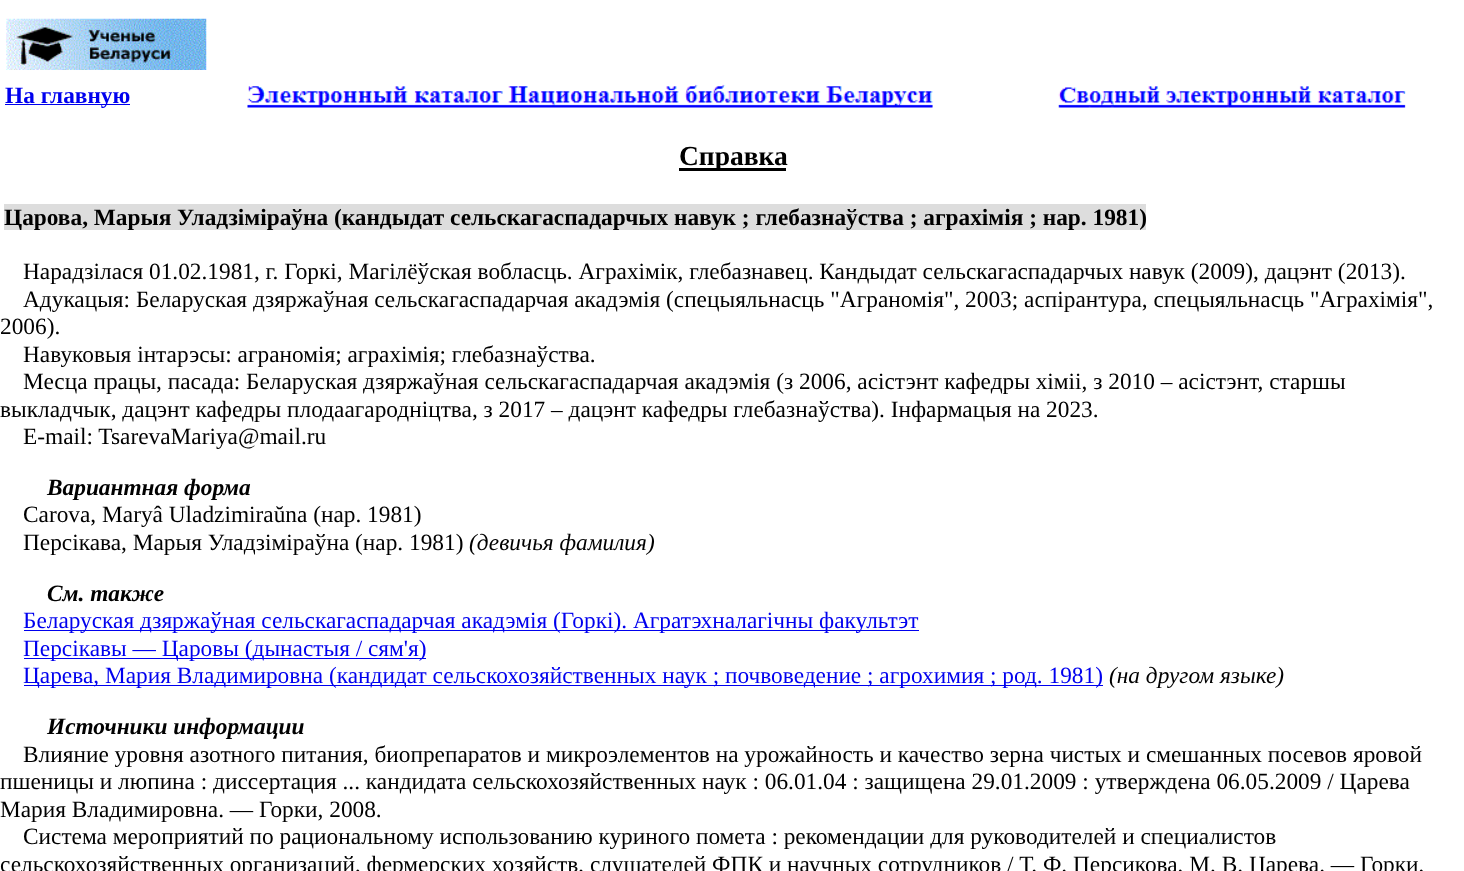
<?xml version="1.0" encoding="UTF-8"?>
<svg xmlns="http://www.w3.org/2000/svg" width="1464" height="871">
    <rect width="100%" height="100%" fill="#FFFFFF"/>
    <image x="6" y="18" width="201" height="52" href="img_01.png"/>
    <rect x="5" y="104" width="125" height="1" fill="#0000EE"/>
    <text x="5" y="103" font-family="Liberation Serif" font-size="23.33" font-weight="700" fill="#0000EE">На главную</text>
    <image x="247" y="84" width="686" height="24" href="img_02.png"/>
    <image x="1058" y="86" width="348" height="22" href="img_03.png"/>
    <rect x="679" y="168" width="107" height="3" fill="#000000"/>
    <text x="679" y="165" font-family="Liberation Serif" font-size="27.5" font-weight="700" fill="#000000">Справка</text>
    <rect x="4" y="204" width="1142" height="26" fill="#DDDDDD"/>
    <text x="4" y="225" font-family="Liberation Serif" font-size="23.33" font-weight="700" fill="#000000">Царова, Марыя Уладзіміраўна (кандыдат сельскагаспадарчых навук ; глебазнаўства ; аграхімія ; нар. 1981)</text>
    <text font-family="Liberation Serif" font-size="23.33" fill="#000000">
        <tspan x="23" y="279">Нарадзілася 01.02.1981, г. Горкі, Магілёўская вобласць. Аграхімік, глебазнавец. Кандыдат сельскагаспадарчых навук (2009), дацэнт (2013).</tspan>
        <tspan x="23" y="307">Адукацыя: Беларуская дзяржаўная сельскагаспадарчая акадэмія (спецыяльнасць "Аграномія", 2003; аспірантура, спецыяльнасць "Аграхімія",</tspan>
    </text>
    <text x="0" y="334" font-family="Liberation Serif" font-size="23.33" fill="#000000">2006).</text>
    <text font-family="Liberation Serif" font-size="23.33" fill="#000000">
        <tspan x="23" y="362">Навуковыя інтарэсы: аграномія; аграхімія; глебазнаўства.</tspan>
        <tspan x="23" y="389">Месца працы, пасада: Беларуская дзяржаўная сельскагаспадарчая акадэмія (з 2006, асістэнт кафедры хіміі, з 2010 – асістэнт, старшы</tspan>
    </text>
    <text x="0" y="417" font-family="Liberation Serif" font-size="23.33" fill="#000000">выкладчык, дацэнт кафедры плодаагародніцтва, з 2017 – дацэнт кафедры глебазнаўства). Інфармацыя на 2023.</text>
    <text x="23" y="444" font-family="Liberation Serif" font-size="23.33" fill="#000000">E-mail: TsarevaMariya@mail.ru</text>
    <text x="47" y="495" font-family="Liberation Serif" font-size="23.33" font-weight="700" font-style="italic" fill="#000000">Вариантная форма</text>
    <text font-family="Liberation Serif" font-size="23.33" fill="#000000">
        <tspan x="23" y="522">Carova, Maryâ Uladzimiraŭna (нар. 1981)</tspan>
        <tspan x="23" y="550">Персікава, Марыя Уладзіміраўна (нар. 1981)</tspan>
    </text>
    <text x="469" y="550" font-family="Liberation Serif" font-size="23.33" font-style="italic" fill="#000000">(девичья фамилия)</text>
    <text x="47" y="601" font-family="Liberation Serif" font-size="23.33" font-weight="700" font-style="italic" fill="#000000">См. также</text>
    <rect x="24" y="630" width="895" height="1" fill="#0000EE"/>
    <text x="23" y="628" font-family="Liberation Serif" font-size="23.33" fill="#0000EE">Беларуская дзяржаўная сельскагаспадарчая акадэмія (Горкі). Агратэхналагічны факультэт</text>
    <rect x="24" y="658" width="402" height="1" fill="#0000EE"/>
    <text x="23" y="656" font-family="Liberation Serif" font-size="23.33" fill="#0000EE">Персікавы — Царовы (дынастыя / сям'я)</text>
    <rect x="24" y="685" width="1079" height="1" fill="#0000EE"/>
    <text x="23" y="683" font-family="Liberation Serif" font-size="23.33" fill="#0000EE">Царева, Мария Владимировна (кандидат сельскохозяйственных наук ; почвоведение ; агрохимия ; род. 1981)</text>
    <text x="1109" y="683" font-family="Liberation Serif" font-size="23.33" font-style="italic" fill="#000000">(на другом языке)</text>
    <text x="47" y="734" font-family="Liberation Serif" font-size="23.33" font-weight="700" font-style="italic" fill="#000000">Источники информации</text>
    <text x="23" y="762" font-family="Liberation Serif" font-size="23.33" fill="#000000">Влияние уровня азотного питания, биопрепаратов и микроэлементов на урожайность и качество зерна чистых и смешанных посевов яровой</text>
    <text font-family="Liberation Serif" font-size="23.33" fill="#000000">
        <tspan x="0" y="789">пшеницы и люпина : диссертация ... кандидата сельскохозяйственных наук : 06.01.04 : защищена 29.01.2009 : утверждена 06.05.2009 / Царева</tspan>
        <tspan x="0" y="817">Мария Владимировна. — Горки, 2008.</tspan>
    </text>
    <text x="23" y="844" font-family="Liberation Serif" font-size="23.33" fill="#000000">Система мероприятий по рациональному использованию куриного помета : рекомендации для руководителей и специалистов</text>
    <text x="0" y="872" font-family="Liberation Serif" font-size="23.33" fill="#000000">сельскохозяйственных организаций, фермерских хозяйств, слушателей ФПК и научных сотрудников / Т. Ф. Персикова, М. В. Царева. — Горки,</text>
</svg>
